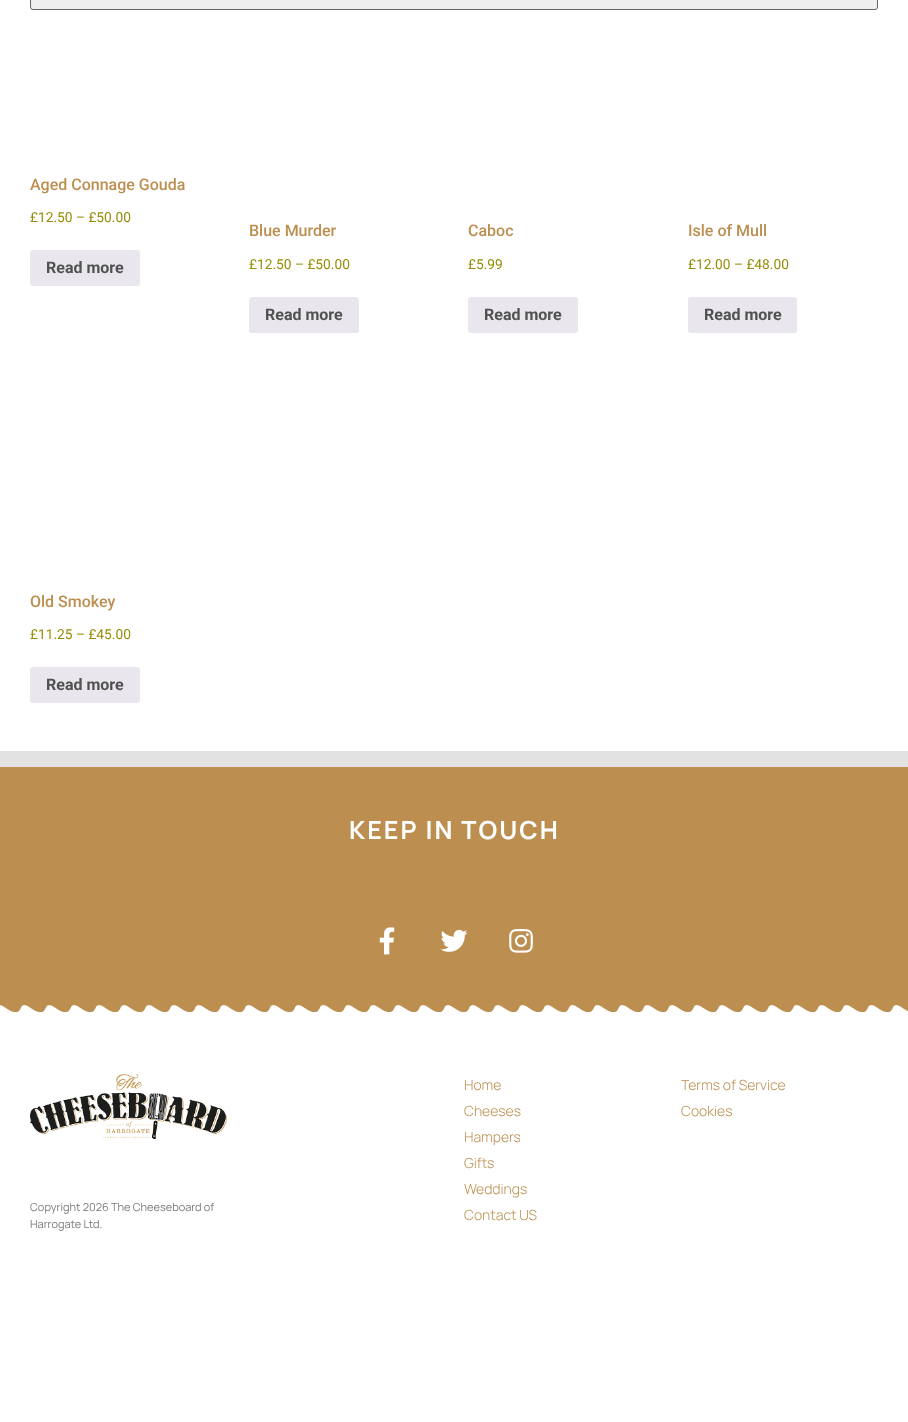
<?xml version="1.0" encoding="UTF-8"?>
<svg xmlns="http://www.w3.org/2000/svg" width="908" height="1422">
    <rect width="100%" height="100%" fill="#E2E2E2"/>
    <rect x="0" y="0" width="908" height="751" fill="#FFFFFF"/>
    <rect x="30.5" y="-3.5" width="847" height="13" rx="2.5" fill="#EFEFEF" stroke="#666666"/>
    <text x="30" y="190" font-family="Roboto" font-size="16" font-weight="500" fill="#BC8F51">Aged Connage Gouda</text>
    <text x="30" y="222" font-family="Roboto" font-size="13.75" fill="#958E09">£12.50 – £50.00</text>
    <rect x="30" y="250" width="110" height="36" rx="3" fill="#E9E6ED"/>
    <text x="46" y="273" font-family="Roboto" font-size="16" font-weight="700" fill="#515151">Read more</text>
    <text x="249" y="236" font-family="Roboto" font-size="16" font-weight="500" fill="#BC8F51">Blue Murder</text>
    <text x="249" y="269" font-family="Roboto" font-size="13.75" fill="#958E09">£12.50 – £50.00</text>
    <rect x="249" y="297" width="110" height="36" rx="3" fill="#E9E6ED"/>
    <text x="265" y="320" font-family="Roboto" font-size="16" font-weight="700" fill="#515151">Read more</text>
    <text x="468" y="236" font-family="Roboto" font-size="16" font-weight="500" fill="#BC8F51">Caboc</text>
    <text x="468" y="269" font-family="Roboto" font-size="13.75" fill="#958E09">£5.99</text>
    <rect x="468" y="297" width="110" height="36" rx="3" fill="#E9E6ED"/>
    <text x="484" y="320" font-family="Roboto" font-size="16" font-weight="700" fill="#515151">Read more</text>
    <text x="688" y="236" font-family="Roboto" font-size="16" font-weight="500" fill="#BC8F51">Isle of Mull</text>
    <text x="688" y="269" font-family="Roboto" font-size="13.75" fill="#958E09">£12.00 – £48.00</text>
    <rect x="688" y="297" width="109" height="36" rx="3" fill="#E9E6ED"/>
    <text x="704" y="320" font-family="Roboto" font-size="16" font-weight="700" fill="#515151">Read more</text>
    <text x="30" y="607" font-family="Roboto" font-size="16" font-weight="500" fill="#BC8F51">Old Smokey</text>
    <text x="30" y="639" font-family="Roboto" font-size="13.75" fill="#958E09">£11.25 – £45.00</text>
    <rect x="30" y="667" width="110" height="36" rx="3" fill="#E9E6ED"/>
    <text x="46" y="690" font-family="Roboto" font-size="16" font-weight="700" fill="#515151">Read more</text>
    <rect x="0" y="767" width="908" height="237" fill="#BC8F51"/>
    <text x="349" y="839" font-family="Manrope" font-size="25" font-weight="700" letter-spacing="2" fill="#FFFFFF">KEEP IN TOUCH</text>
    <image x="379" y="927" width="16" height="28" href="img_01.png"/>
    <image x="440" y="929" width="28" height="23" href="img_02.png"/>
    <image x="509" y="929" width="24" height="24" href="img_03.png"/>
    <rect x="0" y="1005" width="908" height="417" fill="#FFFFFF"/>
    <image x="0" y="1004" width="908" height="8" href="img_04.png"/>
    <text font-family="Manrope" font-size="14" font-weight="300" fill="#BC8F51">
        <tspan x="464" y="1090">Home</tspan>
        <tspan x="464" y="1116">Cheeses</tspan>
        <tspan x="464" y="1142">Hampers</tspan>
        <tspan x="464" y="1168">Gifts</tspan>
        <tspan x="464" y="1194">Weddings</tspan>
        <tspan x="464" y="1220">Contact US</tspan>
    </text>
    <text font-family="Manrope" font-size="14" font-weight="300" fill="#BC8F51">
        <tspan x="681" y="1090">Terms of Service</tspan>
        <tspan x="681" y="1116">Cookies</tspan>
    </text>
    <image x="30" y="1074" width="197" height="65" href="img_05.png"/>
    <text font-family="Manrope" font-size="11" fill="#7A7A7A">
        <tspan x="30" y="1211">Copyright 2026 The Cheeseboard of</tspan>
        <tspan x="30" y="1228">Harrogate Ltd.</tspan>
    </text>
</svg>
